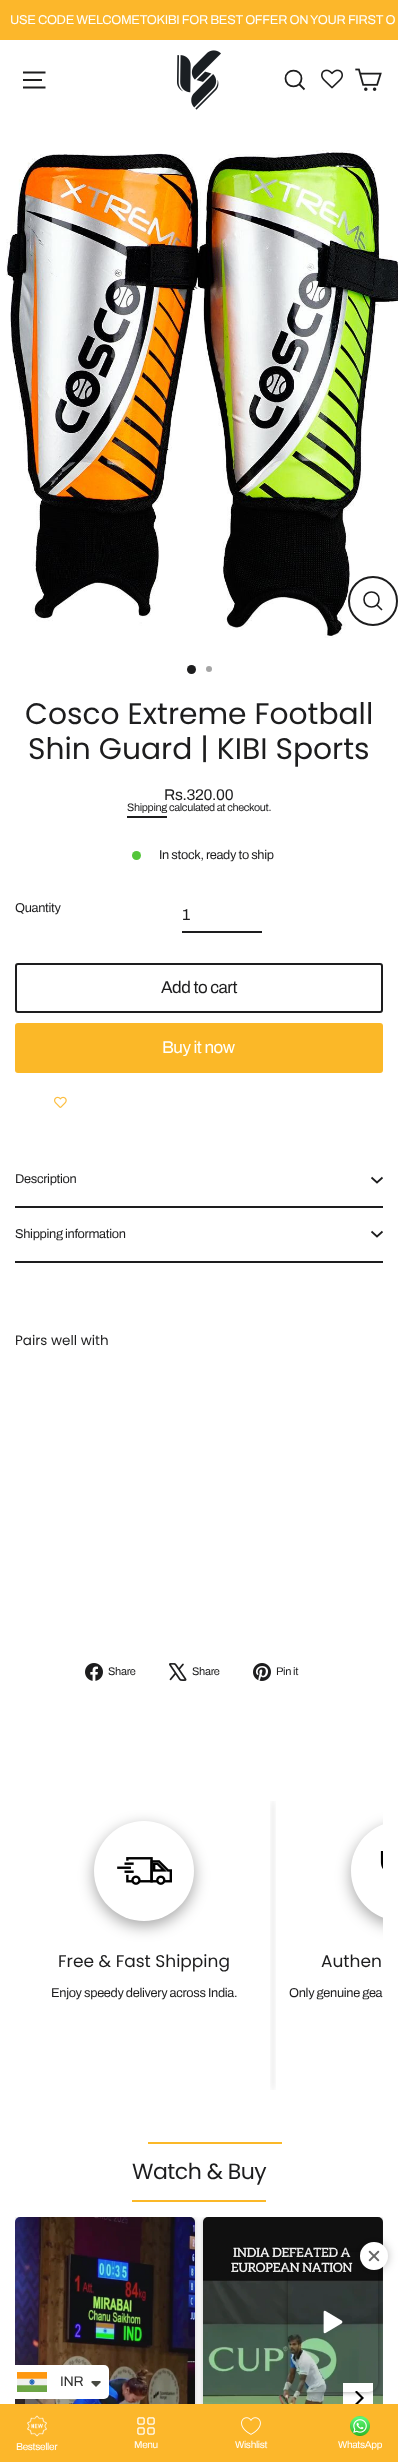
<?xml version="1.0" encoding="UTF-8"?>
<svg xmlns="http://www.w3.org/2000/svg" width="398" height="2462">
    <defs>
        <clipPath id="clip1"><rect x="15" y="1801" width="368" height="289"/></clipPath>
        <clipPath id="clip2"><rect x="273" y="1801" width="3" height="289"/></clipPath>
        <filter id="blur1" x="-50%" y="-200%" width="200%" height="500%"><feGaussianBlur stdDeviation="4"/></filter>
        <filter id="blur2" x="-50%" y="-200%" width="200%" height="500%"><feGaussianBlur stdDeviation="7.5"/></filter>
        <clipPath id="clip3"><rect x="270" y="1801" width="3" height="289"/></clipPath>
        <clipPath id="clip4"><rect x="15" y="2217" width="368" height="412"/></clipPath>
        <filter id="blur3" x="-50%" y="-200%" width="200%" height="500%"><feGaussianBlur stdDeviation="3"/></filter>
        <filter id="blur4" x="-50%" y="-200%" width="200%" height="500%"><feGaussianBlur stdDeviation="5"/></filter>
        <clipPath id="clip5"><path d="M 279 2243 H 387 V 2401 H 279 Z M 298 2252 H 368 C 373.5 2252 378 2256.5 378 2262 V 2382 C 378 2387.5 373.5 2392 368 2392 H 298 C 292.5 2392 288 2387.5 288 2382 V 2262 C 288 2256.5 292.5 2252 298 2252 Z" clip-rule="evenodd"/></clipPath>
        <filter id="blur5" x="-50%" y="-200%" width="200%" height="500%"><feGaussianBlur stdDeviation="2.5"/></filter>
    </defs>
    <rect width="100%" height="100%" fill="#FFFFFF"/>
    <rect x="0" y="0" width="398" height="40" fill="#FCB72B"/>
    <text x="10" y="24" font-family="Archivo" font-size="12.75" letter-spacing="-0.32" fill="#FFFFFF">USE CODE WELCOMETOKIBI FOR BEST OFFER ON YOUR FIRST O</text>
    <image x="177" y="50" width="44" height="60" href="img_01.png"/>
    <path d="M 23 72.5 H 45.5 M 23 80 H 42 M 23 87.5 H 45.5" fill="none" stroke="#1D1D1E" stroke-width="1.8"/>
    <path d="M 301.5 78.5 C 301.5 89 285.5 89 285.5 78.5 C 285.5 68 301.5 68 301.5 78.5 Z M 304.5 89.5 L 299.5 84.5" fill="none" stroke="#1D1D1E" stroke-width="1.8"/>
    <image x="321" y="69" width="22" height="20" href="img_02.png"/>
    <image x="355" y="68" width="27" height="23" href="img_03.png"/>
    <image x="6" y="150" width="392" height="488" href="img_04.png"/>
    <circle cx="373" cy="601" r="24" fill="#FFFFFF" stroke="#1D1D1E" stroke-width="2"/>
    <path d="M 379 599.5 C 379 609.5 364 609.5 364 599.5 C 364 589.5 379 589.5 379 599.5 Z M 382 610 L 377 605" fill="none" stroke="#1D1D1E" stroke-width="1.6"/>
    <circle cx="191.5" cy="669.5" r="4.5" fill="#1D1D1E"/>
    <circle cx="209" cy="669" r="3" fill="#A5A5A5"/>
    <text x="25" y="724" font-family="Poppins" font-size="29.75" fill="#1D1D1E">Cosco Extreme Football</text>
    <text x="28" y="759" font-family="Poppins" font-size="29.75" fill="#1D1D1E">Shin Guard | KIBI Sports</text>
    <text x="164" y="800" font-family="Archivo" font-size="15.5" letter-spacing="-0.32" fill="#1D1D1E">Rs.320.00</text>
    <text x="127" y="811" font-family="Archivo" font-size="10.8" letter-spacing="-0.32" fill="#1D1D1E">Shipping calculated at checkout.</text>
    <rect x="127" y="816" width="40" height="2" fill="#1D1D1E"/>
    <circle cx="136.5" cy="855.5" r="4.5" fill="#54C63A"/>
    <text x="159" y="859" font-family="Archivo" font-size="12.75" letter-spacing="-0.32" fill="#1D1D1E">In stock, ready to ship</text>
    <text x="15" y="912" font-family="Archivo" font-size="12.75" letter-spacing="-0.32" fill="#1D1D1E">Quantity</text>
    <rect x="182" y="931" width="80" height="2" fill="#1D1D1E"/>
    <text x="182" y="920" font-family="Archivo" font-size="16" fill="#1D1D1E">1</text>
    <rect x="16" y="964" width="366" height="48" rx="2" fill="none" stroke="#1D1D1E" stroke-width="2"/>
    <text x="161" y="993" font-family="Archivo" font-size="17" letter-spacing="-0.5" fill="#1D1D1E">Add to cart</text>
    <rect x="15" y="1023" width="368" height="50" rx="3" fill="#FBB828"/>
    <text x="162" y="1053" font-family="Archivo" font-size="17" letter-spacing="-0.5" fill="#FFFFFF">Buy it now</text>
    <image x="54" y="1096" width="13" height="12" href="img_05.png"/>
    <rect x="15" y="1206" width="368" height="2" fill="#1D1D1E"/>
    <text x="15" y="1183" font-family="Archivo" font-size="12.75" letter-spacing="-0.32" fill="#1D1D1E">Description</text>
    <path d="M 371.5 1177.5 L 377 1182.5 L 382.5 1177.5" fill="none" stroke="#1D1D1E" stroke-width="1.7"/>
    <rect x="15" y="1261" width="368" height="2" fill="#1D1D1E"/>
    <text x="15" y="1238" font-family="Archivo" font-size="12.75" letter-spacing="-0.32" fill="#1D1D1E">Shipping information</text>
    <path d="M 371.5 1231.5 L 377 1236.5 L 382.5 1231.5" fill="none" stroke="#1D1D1E" stroke-width="1.7"/>
    <text x="15" y="1345" font-family="Poppins" font-size="13.5" fill="#1D1D1E">Pairs well with</text>
    <image x="85" y="1663" width="18" height="18" href="img_06.png"/>
    <text x="108" y="1675" font-family="Archivo" font-size="11" letter-spacing="-0.32" fill="#1D1D1E">Share</text>
    <image x="169" y="1663" width="18" height="18" href="img_07.png"/>
    <text x="192" y="1675" font-family="Archivo" font-size="11" letter-spacing="-0.32" fill="#1D1D1E">Share</text>
    <image x="253" y="1663" width="18" height="18" href="img_08.png"/>
    <text x="276" y="1675" font-family="Archivo" font-size="11" letter-spacing="-0.32" fill="#1D1D1E">Pin it</text>
    <g clip-path="url(#clip1)">
        <g clip-path="url(#clip2)">
            <rect x="15" y="1801" width="258" height="289" fill="#11111A" fill-opacity="0.1" filter="url(#blur1)"/>
        </g>
    </g>
    <rect x="94" y="1826" width="100" height="100" rx="50" fill="#000000" fill-opacity="0.35" filter="url(#blur2)"/>
    <circle cx="144" cy="1871" r="50" fill="#FFFFFF"/>
    <image x="117" y="1857" width="55" height="28" href="img_09.png"/>
    <text x="58" y="1967" font-family="Poppins" font-size="17" fill="#1D1D1E">Free &amp; Fast Shipping</text>
    <text x="51" y="1997" font-family="Archivo" font-size="12.75" letter-spacing="-0.32" fill="#1D1D1E">Enjoy speedy delivery across India.</text>
    <g clip-path="url(#clip1)">
        <g clip-path="url(#clip3)">
            <rect x="273" y="1801" width="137" height="289" fill="#11111A" fill-opacity="0.1" filter="url(#blur1)"/>
        </g>
    </g>
    <g clip-path="url(#clip1)">
        <rect x="351" y="1826" width="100" height="100" rx="50" fill="#000000" fill-opacity="0.35" filter="url(#blur2)"/>
    </g>
    <path d="M 401 1821 H 383 V 1921 H 401 C 373.5 1921 351 1898.5 351 1871 C 351 1843.5 373.5 1821 401 1821 Z" fill="#FFFFFF"/>
    <image x="380" y="1851" width="3" height="18" href="img_10.png"/>
    <text x="321" y="1967" font-family="Poppins" font-size="17" fill="#1D1D1E">Authen</text>
    <text x="289" y="1997" font-family="Archivo" font-size="12.75" letter-spacing="-0.32" fill="#1D1D1E">Only genuine gea</text>
    <rect x="148" y="2142" width="134" height="2" fill="#FBB828"/>
    <text x="132" y="2179" font-family="Poppins" font-size="22" letter-spacing="-0.5" fill="#1D1D1E">Watch &amp; Buy</text>
    <rect x="132" y="2200" width="134" height="2" fill="#FBB828"/>
    <g clip-path="url(#clip4)">
        <rect x="15" y="2217" width="180" height="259" rx="5" fill="#000000" fill-opacity="0.2" filter="url(#blur3)"/>
    </g>
    <image x="15" y="2217" width="180" height="187" href="img_11.png"/>
    <g clip-path="url(#clip4)">
        <rect x="203" y="2217" width="180" height="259" rx="5" fill="#000000" fill-opacity="0.2" filter="url(#blur3)"/>
    </g>
    <image x="203" y="2217" width="180" height="187" href="img_12.png"/>
    <rect x="25" y="2399" width="30" height="5" fill="#FFFFFF" fill-opacity="0.3"/>
    <image x="35" y="2399" width="8" height="5" href="img_13.png"/>
    <rect x="343" y="2383" width="30" height="21" fill="#FFFFFF"/>
    <image x="355" y="2391" width="9" height="13" href="img_14.png"/>
    <rect x="0" y="2404" width="398" height="58" fill="#FCB72B"/>
    <image x="27" y="2415" width="20" height="22" href="img_15.png"/>
    <text x="16" y="2450" font-family="Archivo" font-size="10" letter-spacing="-0.32" fill="#FFFFFF">Bestseller</text>
    <image x="137" y="2417" width="18" height="18" href="img_16.png"/>
    <text x="134" y="2448" font-family="Archivo" font-size="10" letter-spacing="-0.32" fill="#FFFFFF">Menu</text>
    <image x="241" y="2417" width="20" height="18" href="img_17.png"/>
    <text x="235" y="2448" font-family="Archivo" font-size="10" letter-spacing="-0.32" fill="#FFFFFF">Wishlist</text>
    <image x="350" y="2416" width="20" height="20" href="img_18.png"/>
    <text x="338" y="2448" font-family="Archivo" font-size="10" letter-spacing="-0.32" fill="#FFFFFF">WhatsApp</text>
    <rect x="10" y="2365" width="99" height="34" rx="5" fill="#FFFFFF"/>
    <image x="17" y="2372" width="30" height="20" href="img_19.png"/>
    <text x="60" y="2386" font-family="Archivo" font-size="14" letter-spacing="-0.32" fill="#333333">INR</text>
    <path d="M 93 2381 C 92 2381 91.5 2381.5 91 2382 L 96 2387 L 101 2382 L 100 2381 Z" fill="#474942"/>
    <rect x="360" y="2242" width="28" height="28" rx="14" fill="#000000" fill-opacity="0.27" filter="url(#blur4)"/>
    <g clip-path="url(#clip5)">
        <rect x="288" y="2252" width="90" height="140" rx="10" fill="#000000" fill-opacity="0.43" filter="url(#blur5)"/>
    </g>
    <circle cx="374" cy="2256" r="14" fill="#FFFFFF"/>
    <image x="368" y="2250" width="12" height="12" href="img_20.png"/>
    <image x="323" y="2310" width="20" height="24" href="img_21.png"/>
</svg>
